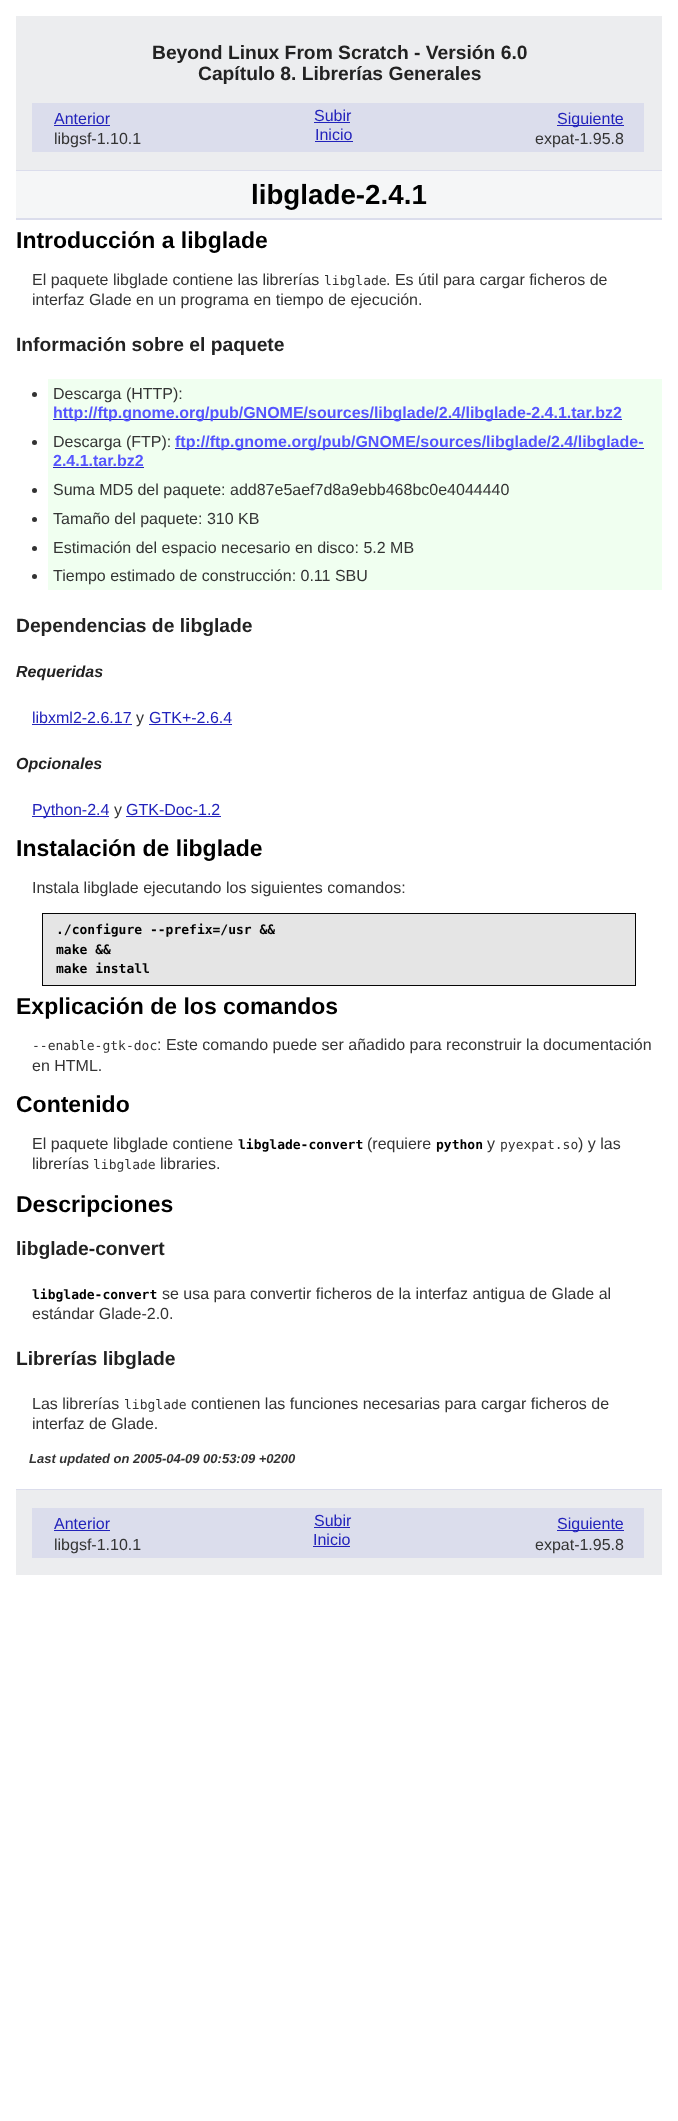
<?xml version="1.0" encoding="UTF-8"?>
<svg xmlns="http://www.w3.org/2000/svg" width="678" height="2121">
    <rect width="100%" height="100%" fill="#FFFFFF"/>
    <rect x="16" y="16" width="646" height="154" fill="#ECEDEF"/>
    <rect x="16" y="170" width="646" height="1" fill="#DBDDEC"/>
    <text x="152" y="59" font-family="Liberation Sans" font-size="19.25" font-weight="700" fill="#222222">Beyond Linux From Scratch - Versión 6.0</text>
    <text x="198" y="80" font-family="Liberation Sans" font-size="19.25" font-weight="700" fill="#222222">Capítulo 8. Librerías Generales</text>
    <rect x="32" y="103" width="612" height="49" fill="#DBDDEC"/>
    <text x="54" y="124" font-family="Liberation Sans" font-size="16" fill="#2222BB">Anterior</text>
    <rect x="54" y="125" width="56" height="1" fill="#2222BB"/>
    <text x="54" y="144" font-family="Liberation Sans" font-size="16" fill="#333333">libgsf-1.10.1</text>
    <text x="314" y="121" font-family="Liberation Sans" font-size="16" fill="#2222BB">Subir</text>
    <rect x="314" y="122" width="36" height="1" fill="#2222BB"/>
    <rect x="557" y="125" width="67" height="1" fill="#2222BB"/>
    <text x="557" y="124" font-family="Liberation Sans" font-size="16" fill="#2222BB">Siguiente</text>
    <text x="535" y="144" font-family="Liberation Sans" font-size="16" fill="#333333">expat-1.95.8</text>
    <text x="315" y="140" font-family="Liberation Sans" font-size="16" fill="#2222BB">Inicio</text>
    <rect x="315" y="141" width="38" height="1" fill="#2222BB"/>
    <rect x="16" y="171" width="646" height="47" fill="#F5F6F7"/>
    <rect x="16" y="218" width="646" height="2" fill="#DBDDEC"/>
    <text x="251" y="204" font-family="Liberation Sans" font-size="27.75" font-weight="700" fill="#000000">libglade-2.4.1</text>
    <text x="16" y="248" font-family="Liberation Sans" font-size="23" font-weight="700" fill="#000000">Introducción a libglade</text>
    <text x="32" y="285" font-family="Liberation Sans" font-size="16" fill="#333333">El paquete libglade contiene las librerías</text>
    <text x="324" y="285" font-family="DejaVu Sans Mono" font-size="13" fill="#333333">libglade</text>
    <text x="386" y="285" font-family="Liberation Sans" font-size="16" fill="#333333">. Es útil para cargar ficheros de</text>
    <text x="32" y="305" font-family="Liberation Sans" font-size="16" fill="#333333">interfaz Glade en un programa en tiempo de ejecución.</text>
    <text x="16" y="351" font-family="Liberation Sans" font-size="19.25" font-weight="700" fill="#222222">Información sobre el paquete</text>
    <circle cx="34.5" cy="394.5" r="2.5" fill="#333333"/>
    <rect x="48" y="379" width="614" height="211" fill="#F0FFF0"/>
    <text x="53" y="399" font-family="Liberation Sans" font-size="16" fill="#333333">Descarga (HTTP):</text>
    <rect x="53" y="419" width="569" height="1" fill="#2222BB"/>
    <text x="53" y="418" font-family="Liberation Sans" font-size="16" font-weight="700" fill="#5555FF">http://ftp.gnome.org/pub/GNOME/sources/libglade/2.4/libglade-2.4.1.tar.bz2</text>
    <circle cx="34.5" cy="442.5" r="2.5" fill="#333333"/>
    <text x="53" y="447" font-family="Liberation Sans" font-size="16" fill="#333333">Descarga (FTP):</text>
    <rect x="175" y="448" width="469" height="1" fill="#2222BB"/>
    <text x="175" y="447" font-family="Liberation Sans" font-size="16" font-weight="700" fill="#5555FF">ftp://ftp.gnome.org/pub/GNOME/sources/libglade/2.4/libglade-</text>
    <text x="53" y="466" font-family="Liberation Sans" font-size="16" font-weight="700" fill="#5555FF">2.4.1.tar.bz2</text>
    <rect x="53" y="467" width="91" height="1" fill="#2222BB"/>
    <circle cx="34.5" cy="490.5" r="2.5" fill="#333333"/>
    <text x="53" y="495" font-family="Liberation Sans" font-size="16" fill="#333333">Suma MD5 del paquete: add87e5aef7d8a9ebb468bc0e4044440</text>
    <circle cx="34.5" cy="519.5" r="2.5" fill="#333333"/>
    <text x="53" y="524" font-family="Liberation Sans" font-size="16" fill="#333333">Tamaño del paquete: 310 KB</text>
    <circle cx="34.5" cy="548.5" r="2.5" fill="#333333"/>
    <text x="53" y="553" font-family="Liberation Sans" font-size="16" fill="#333333">Estimación del espacio necesario en disco: 5.2 MB</text>
    <circle cx="34.5" cy="576.5" r="2.5" fill="#333333"/>
    <text x="53" y="581" font-family="Liberation Sans" font-size="16" fill="#333333">Tiempo estimado de construcción: 0.11 SBU</text>
    <text x="16" y="632" font-family="Liberation Sans" font-size="19.25" font-weight="700" fill="#222222">Dependencias de libglade</text>
    <text x="16" y="677" font-family="Liberation Sans" font-size="16" font-weight="700" font-style="italic" fill="#222222">Requeridas</text>
    <text x="32" y="723" font-family="Liberation Sans" font-size="16" fill="#2222BB">libxml2-2.6.17</text>
    <rect x="32" y="724" width="100" height="1" fill="#2222BB"/>
    <text x="136" y="723" font-family="Liberation Sans" font-size="16" fill="#333333">y</text>
    <text x="149" y="723" font-family="Liberation Sans" font-size="16" fill="#2222BB">GTK+-2.6.4</text>
    <rect x="149" y="724" width="83" height="1" fill="#2222BB"/>
    <text x="16" y="769" font-family="Liberation Sans" font-size="16" font-weight="700" font-style="italic" fill="#222222">Opcionales</text>
    <rect x="32" y="816" width="77" height="1" fill="#2222BB"/>
    <text x="32" y="815" font-family="Liberation Sans" font-size="16" fill="#2222BB">Python-2.4</text>
    <text x="114" y="815" font-family="Liberation Sans" font-size="16" fill="#333333">y</text>
    <text x="126" y="815" font-family="Liberation Sans" font-size="16" fill="#2222BB">GTK-Doc-1.2</text>
    <rect x="126" y="816" width="95" height="1" fill="#2222BB"/>
    <text x="16" y="856" font-family="Liberation Sans" font-size="23" font-weight="700" fill="#000000">Instalación de libglade</text>
    <text x="32" y="893" font-family="Liberation Sans" font-size="16" fill="#333333">Instala libglade ejecutando los siguientes comandos:</text>
    <rect x="42.5" y="913.5" width="593" height="72" fill="#E5E5E5" stroke="#050505"/>
    <text font-family="DejaVu Sans Mono" font-size="13" font-weight="700" fill="#000000">
        <tspan x="56" y="934">./configure --prefix=/usr &amp;&amp;</tspan>
        <tspan x="56" y="954">make &amp;&amp;</tspan>
        <tspan x="56" y="973">make install</tspan>
    </text>
    <text x="16" y="1014" font-family="Liberation Sans" font-size="23" font-weight="700" fill="#000000">Explicación de los comandos</text>
    <text x="32" y="1050" font-family="DejaVu Sans Mono" font-size="13" fill="#333333">--enable-gtk-doc</text>
    <text x="157" y="1050" font-family="Liberation Sans" font-size="16" fill="#333333">: Este comando puede ser añadido para reconstruir la documentación</text>
    <text x="32" y="1071" font-family="Liberation Sans" font-size="16" fill="#333333">en HTML.</text>
    <text x="16" y="1112" font-family="Liberation Sans" font-size="23" font-weight="700" fill="#000000">Contenido</text>
    <text x="32" y="1149" font-family="Liberation Sans" font-size="16" fill="#333333">El paquete libglade contiene</text>
    <text x="238" y="1149" font-family="DejaVu Sans Mono" font-size="13" font-weight="700" fill="#000000">libglade-convert</text>
    <text x="367" y="1149" font-family="Liberation Sans" font-size="16" fill="#333333">(requiere</text>
    <text x="436" y="1149" font-family="DejaVu Sans Mono" font-size="13" font-weight="700" fill="#000000">python</text>
    <text x="487" y="1149" font-family="Liberation Sans" font-size="16" fill="#333333">y</text>
    <text x="500" y="1149" font-family="DejaVu Sans Mono" font-size="13" fill="#333333">pyexpat.so</text>
    <text x="578" y="1149" font-family="Liberation Sans" font-size="16" fill="#333333">) y las</text>
    <text x="32" y="1169" font-family="Liberation Sans" font-size="16" fill="#333333">librerías</text>
    <text x="93" y="1169" font-family="DejaVu Sans Mono" font-size="13" fill="#333333">libglade</text>
    <text x="160" y="1169" font-family="Liberation Sans" font-size="16" fill="#333333">libraries.</text>
    <text x="16" y="1212" font-family="Liberation Sans" font-size="23" font-weight="700" fill="#000000">Descripciones</text>
    <text x="16" y="1255" font-family="Liberation Sans" font-size="19.25" font-weight="700" fill="#222222">libglade-convert</text>
    <text x="32" y="1299" font-family="DejaVu Sans Mono" font-size="13" font-weight="700" fill="#000000">libglade-convert</text>
    <text x="162" y="1299" font-family="Liberation Sans" font-size="16" fill="#333333">se usa para convertir ficheros de la interfaz antigua de Glade al</text>
    <text x="32" y="1319" font-family="Liberation Sans" font-size="16" fill="#333333">estándar Glade-2.0.</text>
    <text x="16" y="1365" font-family="Liberation Sans" font-size="19.25" font-weight="700" fill="#222222">Librerías libglade</text>
    <text x="32" y="1409" font-family="Liberation Sans" font-size="16" fill="#333333">Las librerías</text>
    <text x="124" y="1409" font-family="DejaVu Sans Mono" font-size="13" fill="#333333">libglade</text>
    <text x="191" y="1409" font-family="Liberation Sans" font-size="16" fill="#333333">contienen las funciones necesarias para cargar ficheros de</text>
    <text x="32" y="1429" font-family="Liberation Sans" font-size="16" fill="#333333">interfaz de Glade.</text>
    <text x="29" y="1463" font-family="Liberation Sans" font-size="13" font-weight="700" font-style="italic" fill="#333333">Last updated on 2005-04-09 00:53:09 +0200</text>
    <rect x="16" y="1490" width="646" height="85" fill="#ECEDEF"/>
    <rect x="16" y="1489" width="646" height="1" fill="#DBDDEC"/>
    <rect x="32" y="1508" width="612" height="50" fill="#DBDDEC"/>
    <text x="54" y="1529" font-family="Liberation Sans" font-size="16" fill="#2222BB">Anterior</text>
    <rect x="54" y="1530" width="56" height="1" fill="#2222BB"/>
    <text x="54" y="1550" font-family="Liberation Sans" font-size="16" fill="#333333">libgsf-1.10.1</text>
    <text x="314" y="1526" font-family="Liberation Sans" font-size="16" fill="#2222BB">Subir</text>
    <rect x="314" y="1527" width="36" height="1" fill="#2222BB"/>
    <rect x="557" y="1530" width="67" height="1" fill="#2222BB"/>
    <text x="557" y="1529" font-family="Liberation Sans" font-size="16" fill="#2222BB">Siguiente</text>
    <text x="535" y="1550" font-family="Liberation Sans" font-size="16" fill="#333333">expat-1.95.8</text>
    <text x="313" y="1545" font-family="Liberation Sans" font-size="16" fill="#2222BB">Inicio</text>
    <rect x="313" y="1546" width="37" height="1" fill="#2222BB"/>
</svg>
